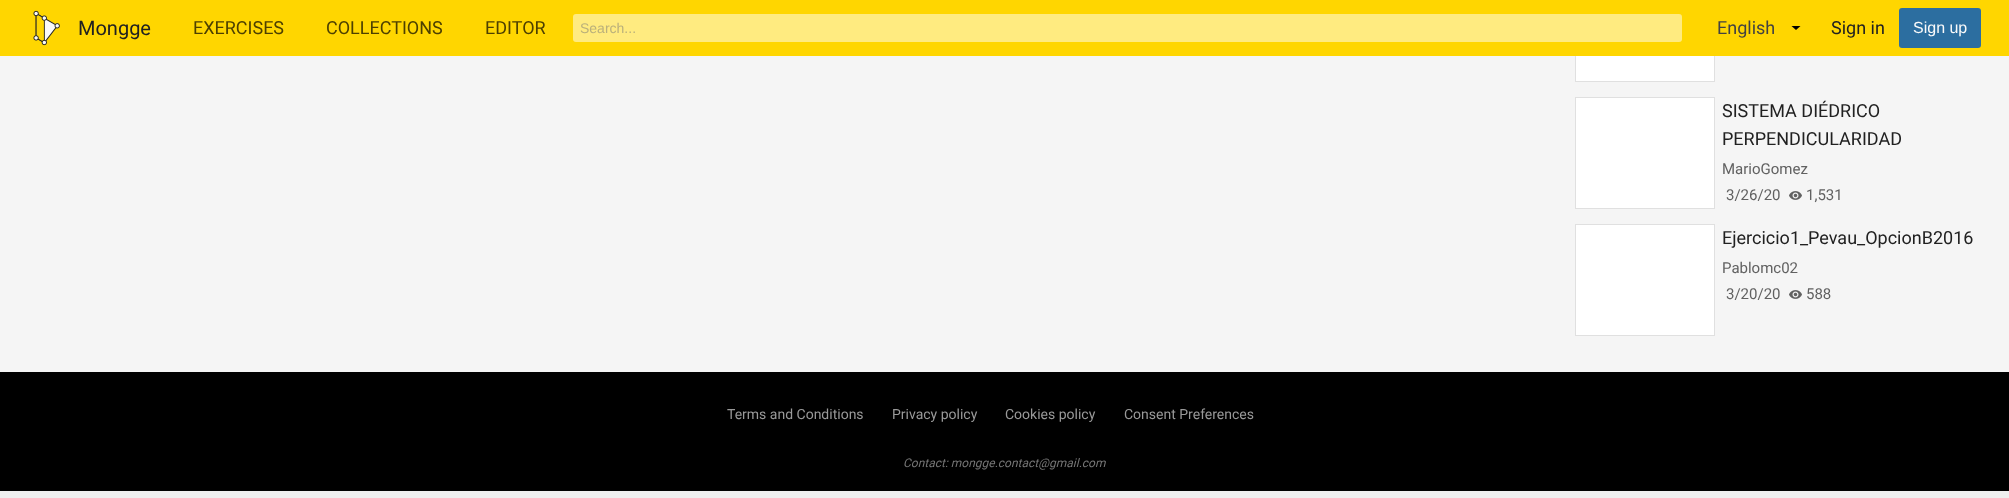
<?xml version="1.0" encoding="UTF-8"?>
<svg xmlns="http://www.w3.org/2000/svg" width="2009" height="498">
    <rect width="100%" height="100%" fill="#F5F5F5"/>
    <rect x="1576" y="56" width="138" height="25" fill="#FFFFFF"/>
    <rect x="1575.5" y="-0.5" width="139" height="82" fill="none" stroke="#E0E0E0"/>
    <rect x="0" y="0" width="2009" height="56" fill="#FFD600"/>
    <image x="33" y="10" width="27" height="36" href="img_01.png"/>
    <text x="78" y="35" font-family="Roboto" font-size="20" fill="#212121">Mongge</text>
    <text x="193" y="34" font-family="Roboto" font-size="18" fill="#4D4000">EXERCISES</text>
    <text x="326" y="34" font-family="Roboto" font-size="18" fill="#4D4000">COLLECTIONS</text>
    <text x="485" y="34" font-family="Roboto" font-size="18" fill="#4D4000">EDITOR</text>
    <rect x="573" y="14" width="1109" height="28" rx="3" fill="#FFEB80"/>
    <text x="580" y="33" font-family="Liberation Sans" font-size="14" fill="#BAB07B">Search...</text>
    <text x="1717" y="34" font-family="Roboto" font-size="18" fill="#424242">English</text>
    <path d="M 1791.5 26 L 1796 30 L 1800.5 26 Z" fill="#000000"/>
    <text x="1831" y="34" font-family="Roboto" font-size="18" fill="#212121">Sign in</text>
    <rect x="1899" y="8" width="82" height="40" rx="3" fill="#2C6EA0"/>
    <text x="1913" y="33" font-family="Liberation Sans" font-size="16" fill="#FAFAFA">Sign up</text>
    <rect x="1575.5" y="97.5" width="139" height="111" fill="#FFFFFF" stroke="#E0E0E0"/>
    <text font-family="Roboto" font-size="18" fill="#212121">
        <tspan x="1722" y="117">SISTEMA DIÉDRICO</tspan>
        <tspan x="1722" y="145">PERPENDICULARIDAD</tspan>
    </text>
    <text x="1722" y="174" font-family="Roboto" font-size="15" fill="#616161">MarioGomez</text>
    <text x="1726" y="200" font-family="Roboto" font-size="15" fill="#616161">3/26/20</text>
    <image x="1789" y="191" width="13" height="9" href="img_02.png"/>
    <text x="1806" y="200" font-family="Roboto" font-size="15" fill="#616161">1,531</text>
    <rect x="1575.5" y="224.5" width="139" height="111" fill="#FFFFFF" stroke="#E0E0E0"/>
    <text x="1722" y="244" font-family="Roboto" font-size="18" fill="#212121">Ejercicio1_Pevau_OpcionB2016</text>
    <text x="1722" y="273" font-family="Roboto" font-size="15" fill="#616161">Pablomc02</text>
    <text x="1726" y="299" font-family="Roboto" font-size="15" fill="#616161">3/20/20</text>
    <image x="1789" y="290" width="13" height="9" href="img_02.png"/>
    <text x="1806" y="299" font-family="Roboto" font-size="15" fill="#616161">588</text>
    <rect x="0" y="372" width="2009" height="119" fill="#000000"/>
    <text x="727" y="419" font-family="Roboto" font-size="14" fill="#999999">Terms and Conditions</text>
    <text x="892" y="419" font-family="Roboto" font-size="14" fill="#999999">Privacy policy</text>
    <text x="1005" y="419" font-family="Roboto" font-size="14" fill="#999999">Cookies policy</text>
    <text x="1124" y="419" font-family="Roboto" font-size="14" fill="#999999">Consent Preferences</text>
    <text x="903" y="467" font-family="Roboto" font-size="12" font-style="italic" fill="#757575">Contact: mongge.contact@gmail.com</text>
    <rect x="0" y="491" width="2009" height="7" fill="#EEEEEE"/>
</svg>
